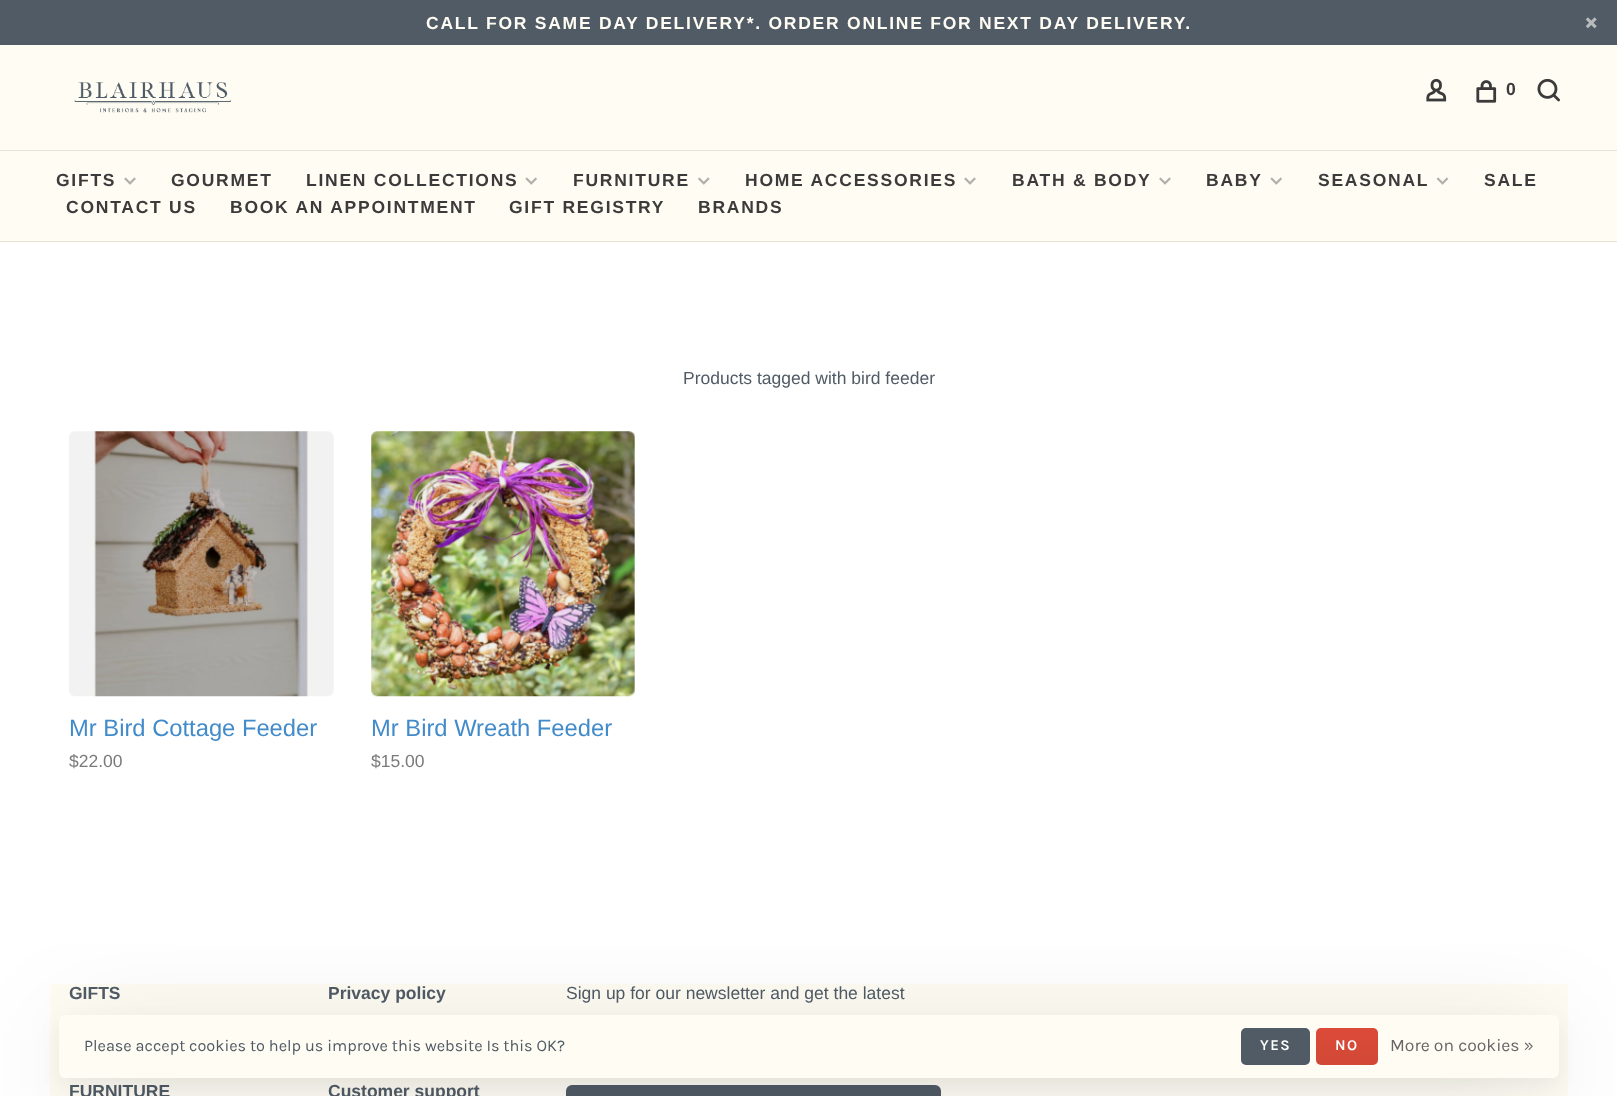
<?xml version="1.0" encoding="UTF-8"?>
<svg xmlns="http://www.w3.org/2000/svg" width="1617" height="1096">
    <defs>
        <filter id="blur1" x="-50%" y="-200%" width="200%" height="500%"><feGaussianBlur stdDeviation="9.5"/></filter>
        <filter id="blur2" x="-50%" y="-200%" width="200%" height="500%"><feGaussianBlur stdDeviation="54"/></filter>
        <linearGradient id="g1" gradientUnits="userSpaceOnUse" x1="1347" y1="1028" x2="1347" y2="1065"><stop offset="0" stop-color="#DC4A38"/><stop offset="1" stop-color="#D14836"/></linearGradient>
    </defs>
    <rect width="100%" height="100%" fill="#FFFFFF"/>
    <rect x="0" y="0" width="1617" height="45" fill="#505B66"/>
    <text x="426" y="29" font-family="Liberation Sans" font-size="17.5" font-weight="700" letter-spacing="1.75" fill="#FEFCF3">CALL FOR SAME DAY DELIVERY*. ORDER ONLINE FOR NEXT DAY DELIVERY.</text>
    <image x="1585" y="17" width="12" height="12" href="img_01.png"/>
    <rect x="0" y="45" width="1617" height="105" fill="#FEFCF3"/>
    <rect x="0" y="150" width="1617" height="1" fill="#E5E3DB"/>
    <image x="74" y="82" width="158" height="31" href="img_02.png"/>
    <image x="1426" y="78" width="21" height="24" href="img_03.png"/>
    <image x="1476" y="80" width="21" height="23" href="img_04.png"/>
    <text x="1506" y="95" font-family="Liberation Sans" font-size="17.5" font-weight="700" letter-spacing="1.75" fill="#3B3B3B">0</text>
    <image x="1537" y="78" width="23" height="24" href="img_05.png"/>
    <rect x="0" y="151" width="1617" height="92" fill="#FEFCF3"/>
    <rect x="0" y="241" width="1617" height="1" fill="#E5E3DB"/>
    <text x="56" y="186" font-family="Liberation Sans" font-size="17.5" font-weight="700" letter-spacing="1.75" fill="#3B3B3B">GIFTS</text>
    <image x="124" y="177" width="12" height="8" href="img_06.png"/>
    <text x="171" y="186" font-family="Liberation Sans" font-size="17.5" font-weight="700" letter-spacing="1.75" fill="#3B3B3B">GOURMET</text>
    <text x="306" y="186" font-family="Liberation Sans" font-size="17.5" font-weight="700" letter-spacing="1.75" fill="#3B3B3B">LINEN COLLECTIONS</text>
    <image x="525" y="177" width="12" height="8" href="img_07.png"/>
    <text x="573" y="186" font-family="Liberation Sans" font-size="17.5" font-weight="700" letter-spacing="1.75" fill="#3B3B3B">FURNITURE</text>
    <image x="698" y="177" width="12" height="8" href="img_08.png"/>
    <text x="745" y="186" font-family="Liberation Sans" font-size="17.5" font-weight="700" letter-spacing="1.75" fill="#3B3B3B">HOME ACCESSORIES</text>
    <image x="964" y="177" width="12" height="8" href="img_06.png"/>
    <text x="1012" y="186" font-family="Liberation Sans" font-size="17.5" font-weight="700" letter-spacing="1.75" fill="#3B3B3B">BATH &amp; BODY</text>
    <image x="1159" y="177" width="12" height="8" href="img_06.png"/>
    <text x="1206" y="186" font-family="Liberation Sans" font-size="17.5" font-weight="700" letter-spacing="1.75" fill="#3B3B3B">BABY</text>
    <image x="1270" y="177" width="12" height="8" href="img_07.png"/>
    <text x="1318" y="186" font-family="Liberation Sans" font-size="17.5" font-weight="700" letter-spacing="1.75" fill="#3B3B3B">SEASONAL</text>
    <image x="1436" y="177" width="13" height="8" href="img_09.png"/>
    <text x="1484" y="186" font-family="Liberation Sans" font-size="17.5" font-weight="700" letter-spacing="1.75" fill="#3B3B3B">SALE</text>
    <text x="66" y="213" font-family="Liberation Sans" font-size="17.5" font-weight="700" letter-spacing="1.75" fill="#3B3B3B">CONTACT US</text>
    <text x="230" y="213" font-family="Liberation Sans" font-size="17.5" font-weight="700" letter-spacing="1.75" fill="#3B3B3B">BOOK AN APPOINTMENT</text>
    <text x="509" y="213" font-family="Liberation Sans" font-size="17.5" font-weight="700" letter-spacing="1.75" fill="#3B3B3B">GIFT REGISTRY</text>
    <text x="698" y="213" font-family="Liberation Sans" font-size="17.5" font-weight="700" letter-spacing="1.75" fill="#3B3B3B">BRANDS</text>
    <text x="683" y="384" font-family="Liberation Sans" font-size="17.5" fill="#505B66">Products tagged with bird feeder</text>
    <image x="69" y="431" width="265" height="266" href="img_10.png"/>
    <text x="69" y="736" font-family="Liberation Sans" font-size="23.75" fill="#428BCA">Mr Bird Cottage Feeder</text>
    <text x="69" y="767" font-family="Liberation Sans" font-size="17.5" fill="#7A7A7A">$22.00</text>
    <image x="371" y="431" width="264" height="266" href="img_11.png"/>
    <text x="371" y="736" font-family="Liberation Sans" font-size="23.75" fill="#428BCA">Mr Bird Wreath Feeder</text>
    <text x="371" y="767" font-family="Liberation Sans" font-size="17.5" fill="#7A7A7A">$15.00</text>
    <rect x="50" y="984" width="1518" height="112" fill="#FEFCF3"/>
    <text x="69" y="999" font-family="Liberation Sans" font-size="17.5" font-weight="700" fill="#505B66">GIFTS</text>
    <text x="69" y="1097" font-family="Liberation Sans" font-size="17.5" font-weight="700" fill="#505B66">FURNITURE</text>
    <text x="328" y="999" font-family="Liberation Sans" font-size="17.5" font-weight="700" fill="#505B66">Privacy policy</text>
    <text x="328" y="1097" font-family="Liberation Sans" font-size="17.5" font-weight="700" fill="#505B66">Customer support</text>
    <text x="566" y="999" font-family="Liberation Sans" font-size="17.5" fill="#505B66">Sign up for our newsletter and get the latest</text>
    <rect x="566" y="1085" width="375" height="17" rx="6" fill="#505B66"/>
    <rect x="59" y="1023" width="1500" height="62" rx="6" fill="#000000" fill-opacity="0.05" filter="url(#blur1)"/>
    <rect x="66" y="1040" width="1485" height="48" fill="#000000" fill-opacity="0.15" filter="url(#blur2)"/>
    <rect x="59" y="1015" width="1500" height="63" rx="6" fill="#FEFCF3"/>
    <text x="84" y="1051" font-family="Karla" font-size="16.25" fill="#505B66">Please accept cookies to help us improve this website Is this OK?</text>
    <rect x="1241" y="1028" width="69" height="37" rx="5" fill="#505B66"/>
    <text x="1260" y="1050" font-family="Karla" font-size="15" font-weight="600" letter-spacing="1.5" fill="#FFFFFF">YES</text>
    <rect x="1316" y="1028" width="62" height="37" rx="5" fill="url(#g1)"/>
    <text x="1335" y="1050" font-family="Karla" font-size="15" font-weight="600" letter-spacing="1.5" fill="#FFFFFF">NO</text>
    <text x="1390" y="1051" font-family="Karla" font-size="17.5" fill="#666666">More on cookies »</text>
</svg>
